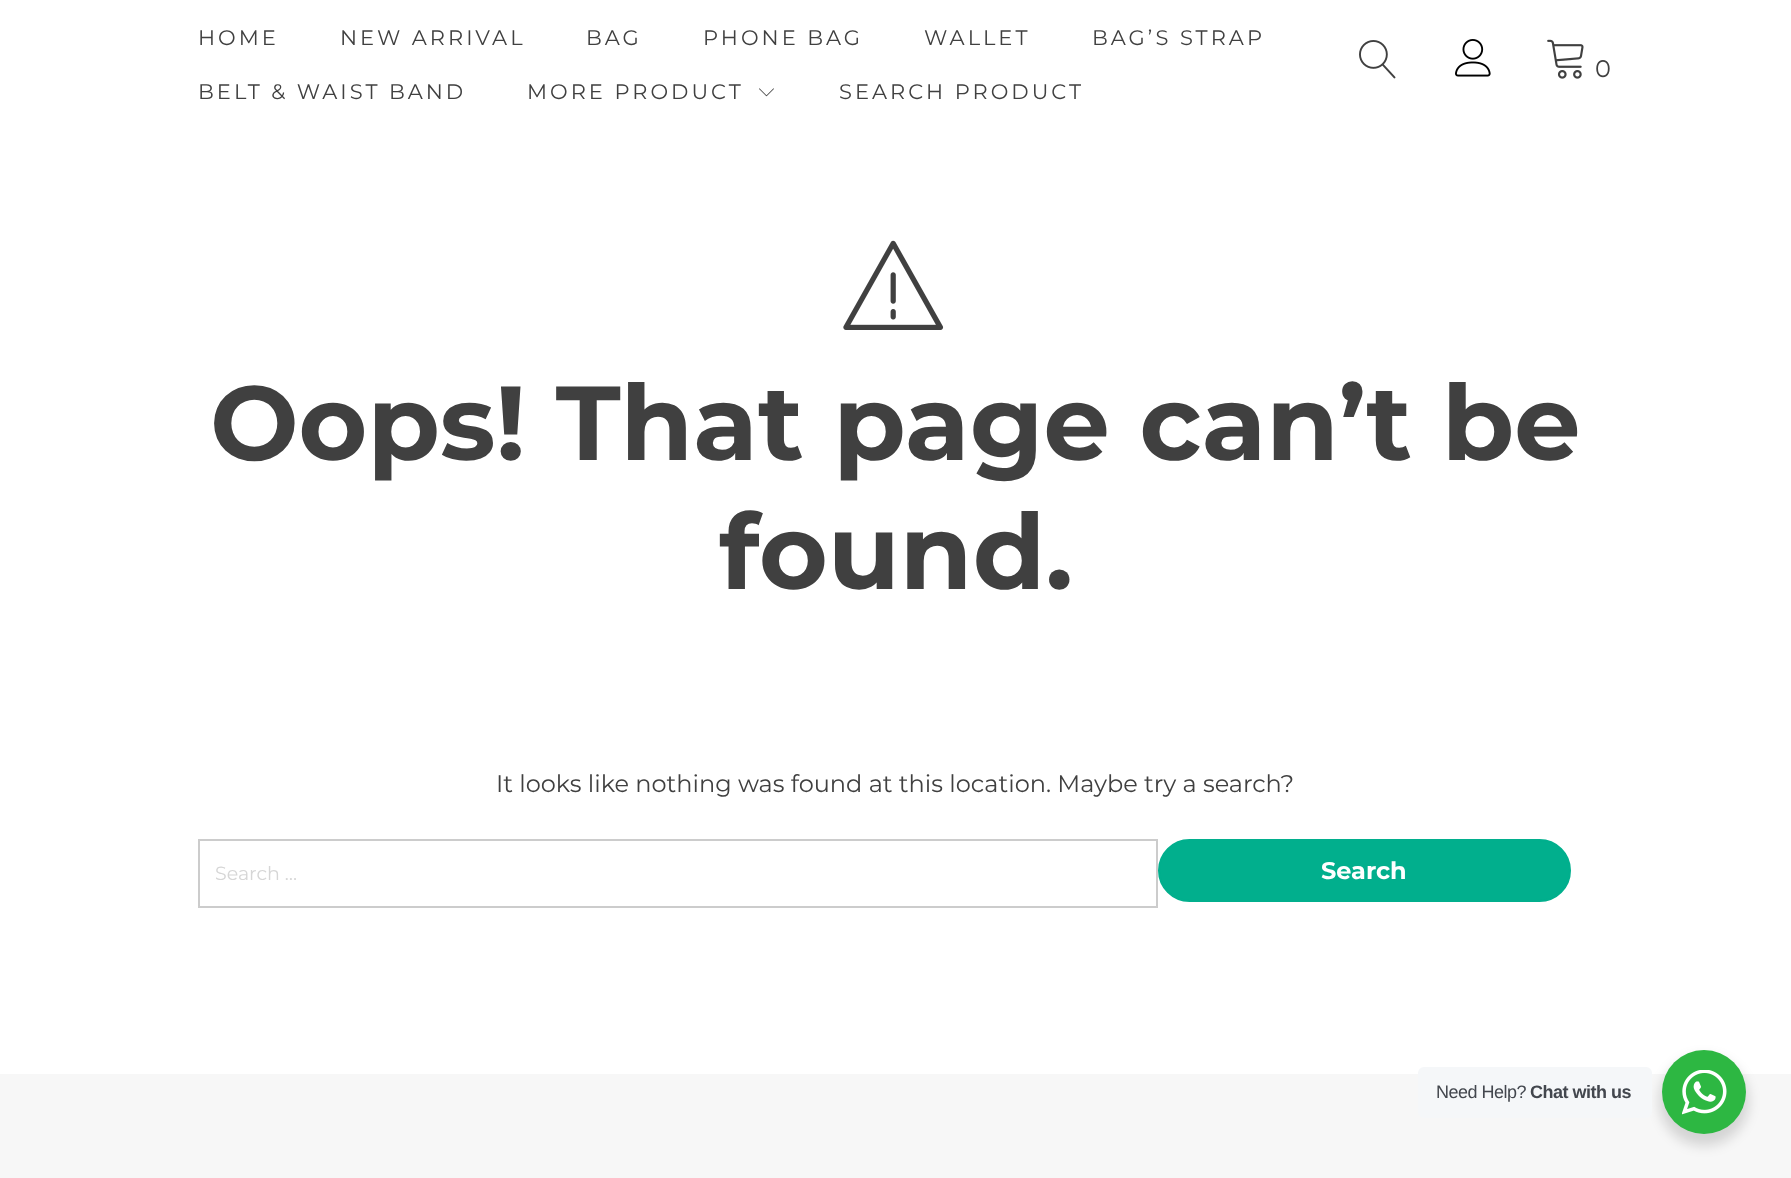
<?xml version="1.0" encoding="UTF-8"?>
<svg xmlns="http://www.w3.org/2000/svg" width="1791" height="1178">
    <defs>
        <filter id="blur1" x="-50%" y="-200%" width="200%" height="500%"><feGaussianBlur stdDeviation="6"/></filter>
    </defs>
    <rect width="100%" height="100%" fill="#FFFFFF"/>
    <text x="198" y="45" font-family="Montserrat" font-size="21" letter-spacing="3" fill="#404040">HOME</text>
    <text x="340" y="45" font-family="Montserrat" font-size="21" letter-spacing="3" fill="#404040">NEW ARRIVAL</text>
    <text x="586" y="45" font-family="Montserrat" font-size="21" letter-spacing="3" fill="#404040">BAG</text>
    <text x="703" y="45" font-family="Montserrat" font-size="21" letter-spacing="3" fill="#404040">PHONE BAG</text>
    <text x="924" y="45" font-family="Montserrat" font-size="21" letter-spacing="3" fill="#404040">WALLET</text>
    <text x="1092" y="45" font-family="Montserrat" font-size="21" letter-spacing="3" fill="#404040">BAG’S STRAP</text>
    <text x="198" y="99" font-family="Montserrat" font-size="21" letter-spacing="3" fill="#404040">BELT &amp; WAIST BAND</text>
    <text x="527" y="99" font-family="Montserrat" font-size="21" letter-spacing="3" fill="#404040">MORE PRODUCT</text>
    <image x="759" y="88" width="15" height="9" href="img_01.png"/>
    <text x="839" y="99" font-family="Montserrat" font-size="21" letter-spacing="3" fill="#404040">SEARCH PRODUCT</text>
    <image x="1359" y="40" width="37" height="39" href="img_02.png"/>
    <image x="1455" y="39" width="36" height="38" href="img_03.png"/>
    <image x="1547" y="39" width="37" height="40" href="img_04.png"/>
    <text x="1595" y="77" font-family="Montserrat" font-size="24" fill="#404040">0</text>
    <image x="843" y="240" width="101" height="90" href="img_05.png"/>
    <text x="210" y="460" font-family="Montserrat" font-size="105" font-weight="700" fill="#404040">Oops! That page can’t be</text>
    <text x="719" y="589" font-family="Montserrat" font-size="105" font-weight="700" fill="#404040">found.</text>
    <text x="496" y="792" font-family="Montserrat" font-size="24" fill="#404040">It looks like nothing was found at this location. Maybe try a search?</text>
    <rect x="199" y="840" width="958" height="67" fill="none" stroke="#CCCCCC" stroke-width="2"/>
    <text x="215" y="880" font-family="Montserrat" font-size="19" fill="#D6D6D6">Search …</text>
    <rect x="1159" y="840" width="411" height="61" rx="30.5" fill="#01AF8D" stroke="#01AF8D" stroke-width="2"/>
    <text x="1321" y="879" font-family="Montserrat" font-size="24" font-weight="700" fill="#FFFFFF">Search</text>
    <rect x="0" y="1074" width="1791" height="104" fill="#F7F7F7"/>
    <rect x="1659" y="1056" width="90" height="90" rx="45" fill="#000000" fill-opacity="0.14" filter="url(#blur1)"/>
    <rect x="1418" y="1067" width="234" height="51" rx="6" fill="#F5F7F9"/>
    <text x="1436" y="1098" font-family="Liberation Sans" font-size="18" letter-spacing="-0.5" fill="#43474E">Need Help?</text>
    <text x="1530" y="1098" font-family="Liberation Sans" font-size="18" font-weight="700" letter-spacing="-0.5" fill="#43474E">Chat with us</text>
    <circle cx="1704" cy="1092" r="42" fill="#2DB742"/>
    <image x="1682" y="1070" width="45" height="45" href="img_06.png"/>
</svg>
